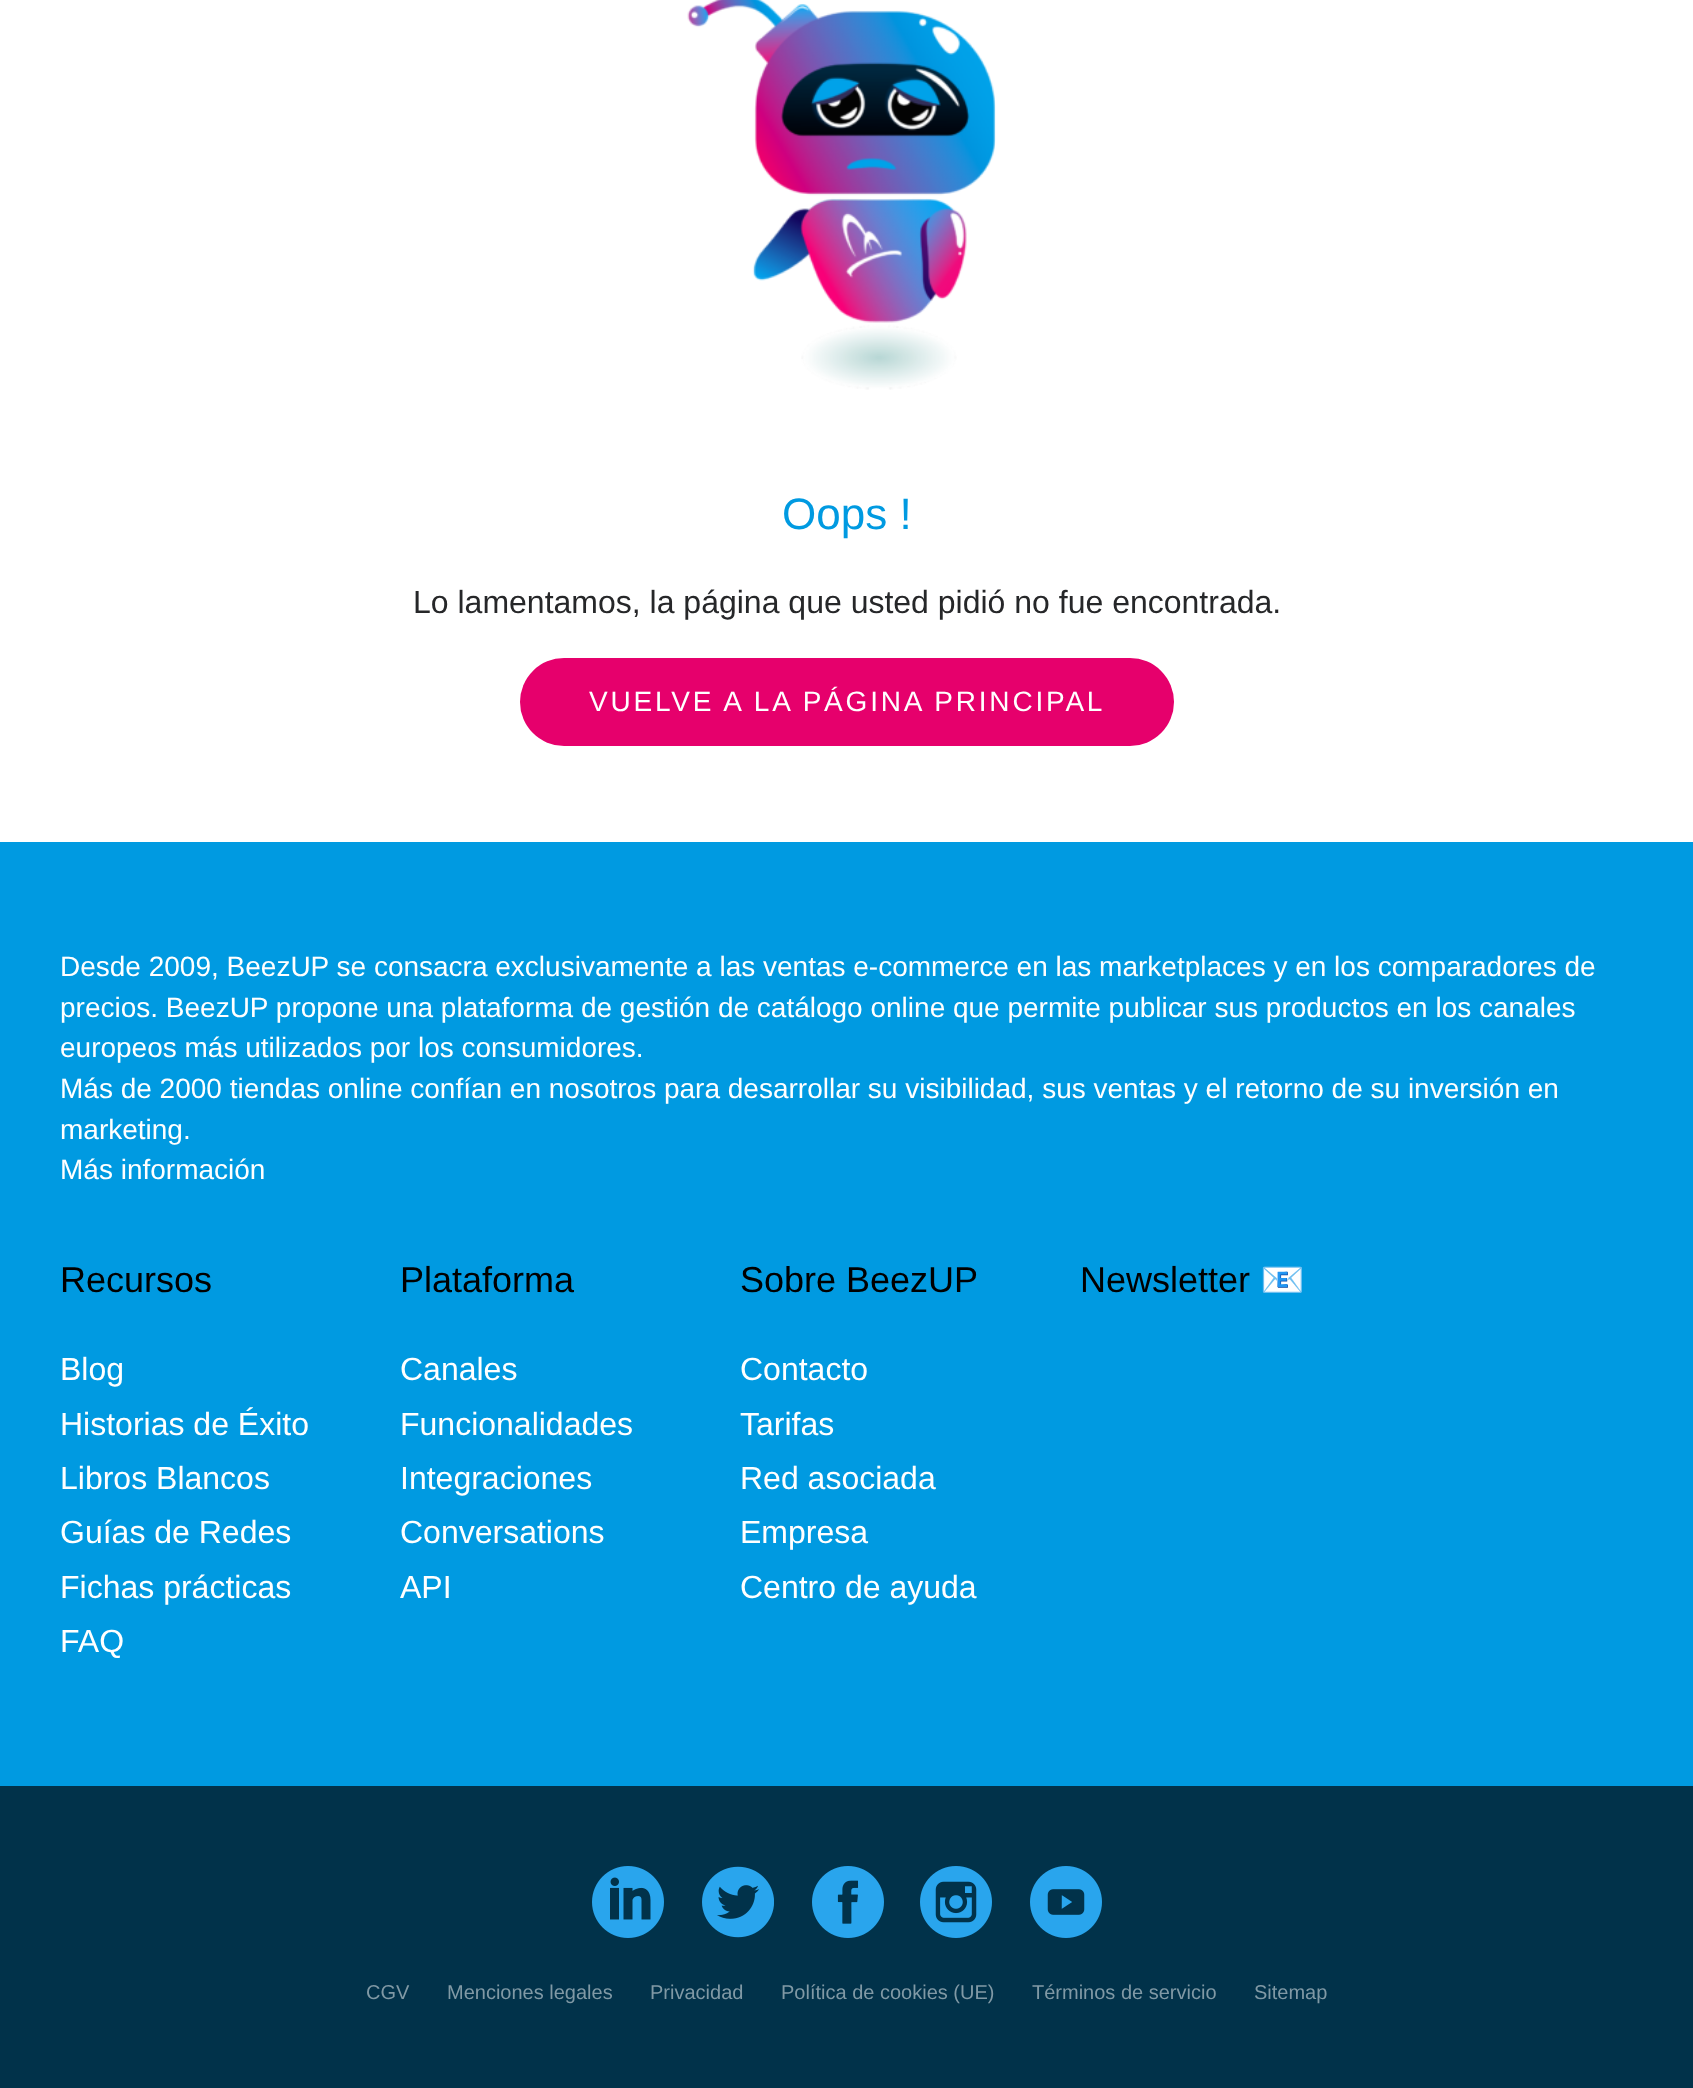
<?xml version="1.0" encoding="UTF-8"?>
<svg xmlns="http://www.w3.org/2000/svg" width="1693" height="2088">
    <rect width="100%" height="100%" fill="#FFFFFF"/>
    <image x="687" y="0" width="309" height="390" href="img_01.png"/>
    <text x="782" y="529" font-family="Liberation Sans" font-size="44" fill="#009AE1">Oops !</text>
    <text x="413" y="613" font-family="Liberation Sans" font-size="32" fill="#262729">Lo lamentamos, la página que usted pidió no fue encontrada.</text>
    <rect x="520" y="658" width="654" height="88" rx="44" fill="#E6006C"/>
    <text x="589" y="711" font-family="Liberation Sans" font-size="28" letter-spacing="2.8" fill="#FFFFFF">VUELVE A LA PÁGINA PRINCIPAL</text>
    <rect x="0" y="842" width="1693" height="944" fill="#009AE1"/>
    <text font-family="Liberation Sans" font-size="28" fill="#FFFFFF">
        <tspan x="60" y="976">Desde 2009, BeezUP se consacra exclusivamente a las ventas e-commerce en las marketplaces y en los comparadores de</tspan>
        <tspan x="60" y="1017">precios. BeezUP propone una plataforma de gestión de catálogo online que permite publicar sus productos en los canales</tspan>
        <tspan x="60" y="1057">europeos más utilizados por los consumidores.</tspan>
        <tspan x="60" y="1098">Más de 2000 tiendas online confían en nosotros para desarrollar su visibilidad, sus ventas y el retorno de su inversión en</tspan>
        <tspan x="60" y="1139">marketing.</tspan>
        <tspan x="60" y="1179">Más información</tspan>
    </text>
    <text x="60" y="1292" font-family="Liberation Sans" font-size="36" fill="#000000">Recursos</text>
    <text font-family="Liberation Sans" font-size="32" fill="#FFFFFF">
        <tspan x="60" y="1380">Blog</tspan>
        <tspan x="60" y="1435">Historias de Éxito</tspan>
        <tspan x="60" y="1489">Libros Blancos</tspan>
        <tspan x="60" y="1543">Guías de Redes</tspan>
        <tspan x="60" y="1598">Fichas prácticas</tspan>
        <tspan x="60" y="1652">FAQ</tspan>
    </text>
    <text x="400" y="1292" font-family="Liberation Sans" font-size="36" fill="#000000">Plataforma</text>
    <text font-family="Liberation Sans" font-size="32" fill="#FFFFFF">
        <tspan x="400" y="1380">Canales</tspan>
        <tspan x="400" y="1435">Funcionalidades</tspan>
        <tspan x="400" y="1489">Integraciones</tspan>
        <tspan x="400" y="1543">Conversations</tspan>
        <tspan x="400" y="1598">API</tspan>
    </text>
    <text x="740" y="1292" font-family="Liberation Sans" font-size="36" fill="#000000">Sobre BeezUP</text>
    <text font-family="Liberation Sans" font-size="32" fill="#FFFFFF">
        <tspan x="740" y="1380">Contacto</tspan>
        <tspan x="740" y="1435">Tarifas</tspan>
        <tspan x="740" y="1489">Red asociada</tspan>
        <tspan x="740" y="1543">Empresa</tspan>
        <tspan x="740" y="1598">Centro de ayuda</tspan>
    </text>
    <text x="1080" y="1292" font-family="Liberation Sans" font-size="36" fill="#000000">Newsletter</text>
    <text x="1260" y="1292" font-family="Noto Color Emoji" font-size="36" fill="#000000">📧</text>
    <rect x="0" y="1786" width="1693" height="302" fill="#01324A"/>
    <image x="592" y="1866" width="72" height="72" href="img_02.png"/>
    <image x="702" y="1866" width="72" height="72" href="img_03.png"/>
    <image x="812" y="1866" width="72" height="72" href="img_04.png"/>
    <image x="920" y="1866" width="72" height="72" href="img_05.png"/>
    <image x="1030" y="1866" width="72" height="72" href="img_06.png"/>
    <text x="366" y="1999" font-family="Liberation Sans" font-size="20" fill="#8099A5">CGV</text>
    <text x="447" y="1999" font-family="Liberation Sans" font-size="20" fill="#8099A5">Menciones legales</text>
    <text x="650" y="1999" font-family="Liberation Sans" font-size="20" fill="#8099A5">Privacidad</text>
    <text x="781" y="1999" font-family="Liberation Sans" font-size="20" fill="#8099A5">Política de cookies (UE)</text>
    <text x="1032" y="1999" font-family="Liberation Sans" font-size="20" fill="#8099A5">Términos de servicio</text>
    <text x="1254" y="1999" font-family="Liberation Sans" font-size="20" fill="#8099A5">Sitemap</text>
</svg>
